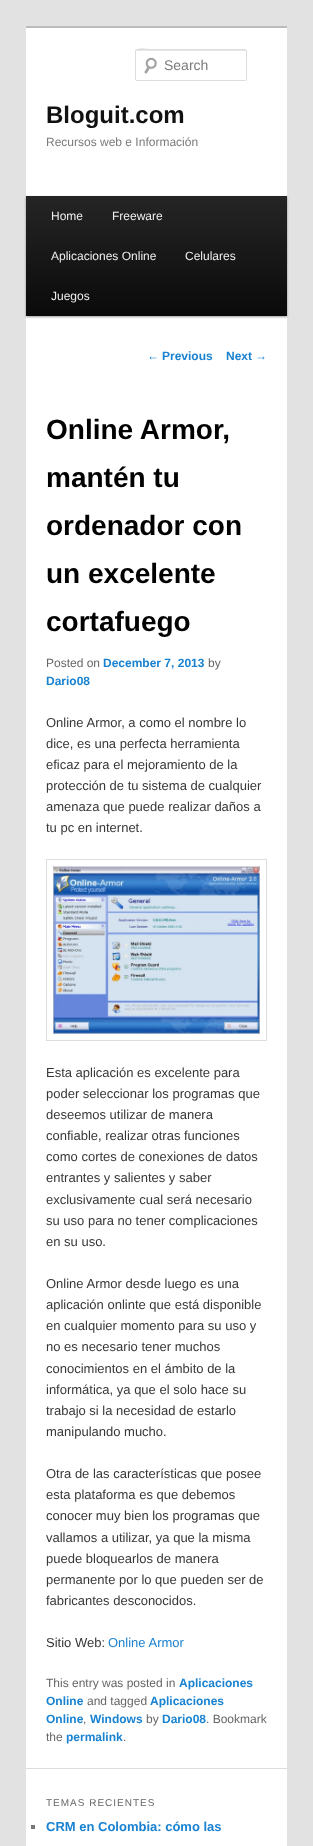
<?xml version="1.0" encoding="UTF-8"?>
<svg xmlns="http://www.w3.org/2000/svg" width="313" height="1846">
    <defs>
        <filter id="blur1" x="-50%" y="-200%" width="200%" height="500%"><feGaussianBlur stdDeviation="1"/></filter>
        <linearGradient id="g1" gradientUnits="userSpaceOnUse" x1="157" y1="196" x2="157" y2="316"><stop offset="0" stop-color="#252525"/><stop offset="1" stop-color="#0A0A0A"/></linearGradient>
    </defs>
    <rect width="100%" height="100%" fill="#E2E2E2"/>
    <rect x="26" y="28" width="261" height="1818" fill="#FFFFFF"/>
    <rect x="26" y="26" width="261" height="2" fill="#BBBBBB"/>
    <image x="144" y="57" width="13" height="17" href="img_01.png"/>
    <path d="M 137 51 H 246 V 52 L 245 50 H 155 C 151 50 136 45 136 52 C 136 51 136 51 137 51 Z" fill="#E6E6E6"/>
    <rect x="135.5" y="49.5" width="111" height="31" rx="1.5" fill="none" stroke="#DDDDDD"/>
    <text x="164" y="70" font-family="Liberation Sans" font-size="14" fill="#7A7A7A">Search</text>
    <text x="46" y="123" font-family="Liberation Sans" font-size="24" font-weight="700" fill="#111111">Bloguit.com</text>
    <text x="46" y="146" font-family="Liberation Sans" font-size="12" fill="#7A7A7A">Recursos web e Información</text>
    <rect x="26" y="197" width="261" height="120" fill="#000000" fill-opacity="0.4" filter="url(#blur1)"/>
    <rect x="26" y="196" width="261" height="120" fill="url(#g1)"/>
    <text x="51" y="220" font-family="Liberation Sans" font-size="12" fill="#EEEEEE">Home</text>
    <text x="112" y="220" font-family="Liberation Sans" font-size="12" fill="#EEEEEE">Freeware</text>
    <text x="51" y="260" font-family="Liberation Sans" font-size="12" fill="#EEEEEE">Aplicaciones Online</text>
    <text x="185" y="260" font-family="Liberation Sans" font-size="12" fill="#EEEEEE">Celulares</text>
    <text x="51" y="300" font-family="Liberation Sans" font-size="12" fill="#EEEEEE">Juegos</text>
    <text x="147" y="360" font-family="Liberation Sans" font-size="12" fill="#1982D1">←</text>
    <text x="162" y="360" font-family="Liberation Sans" font-size="12" font-weight="700" fill="#1982D1">Previous</text>
    <text x="226" y="360" font-family="Liberation Sans" font-size="12" font-weight="700" fill="#1982D1">Next</text>
    <text x="255" y="360" font-family="Liberation Sans" font-size="12" fill="#1982D1">→</text>
    <text font-family="Liberation Sans" font-size="28" font-weight="700" fill="#000000">
        <tspan x="46" y="439">Online Armor,</tspan>
        <tspan x="46" y="487">mantén tu</tspan>
        <tspan x="46" y="535">ordenador con</tspan>
        <tspan x="46" y="583">un excelente</tspan>
        <tspan x="46" y="631">cortafuego</tspan>
    </text>
    <text x="46" y="667" font-family="Liberation Sans" font-size="12" fill="#666666">Posted on</text>
    <text x="103" y="667" font-family="Liberation Sans" font-size="12" font-weight="700" fill="#1982D1">December 7, 2013</text>
    <text x="208" y="667" font-family="Liberation Sans" font-size="12" fill="#666666">by</text>
    <text x="46" y="685" font-family="Liberation Sans" font-size="12" font-weight="700" fill="#1982D1">Dario08</text>
    <text font-family="Liberation Sans" font-size="13" fill="#373737">
        <tspan x="46" y="727">Online Armor, a como el nombre lo</tspan>
        <tspan x="46" y="748">dice, es una perfecta herramienta</tspan>
        <tspan x="46" y="769">eficaz para el mejoramiento de la</tspan>
        <tspan x="46" y="790">protección de tu sistema de cualquier</tspan>
        <tspan x="46" y="811">amenaza que puede realizar daños a</tspan>
        <tspan x="46" y="832">tu pc en internet.</tspan>
    </text>
    <rect x="46.5" y="859.5" width="220" height="181" fill="none" stroke="#DDDDDD"/>
    <image x="53" y="866" width="207" height="168" href="img_02.png"/>
    <text font-family="Liberation Sans" font-size="13" fill="#373737">
        <tspan x="46" y="1077">Esta aplicación es excelente para</tspan>
        <tspan x="46" y="1098">poder seleccionar los programas que</tspan>
        <tspan x="46" y="1119">deseemos utilizar de manera</tspan>
        <tspan x="46" y="1140">confiable, realizar otras funciones</tspan>
        <tspan x="46" y="1161">como cortes de conexiones de datos</tspan>
        <tspan x="46" y="1182">entrantes y salientes y saber</tspan>
        <tspan x="46" y="1204">exclusivamente cual será necesario</tspan>
        <tspan x="46" y="1225">su uso para no tener complicaciones</tspan>
        <tspan x="46" y="1246">en su uso.</tspan>
    </text>
    <text font-family="Liberation Sans" font-size="13" fill="#373737">
        <tspan x="46" y="1288">Online Armor desde luego es una</tspan>
        <tspan x="46" y="1309">aplicación onlinte que está disponible</tspan>
        <tspan x="46" y="1330">en cualquier momento para su uso y</tspan>
        <tspan x="46" y="1351">no es necesario tener muchos</tspan>
        <tspan x="46" y="1373">conocimientos en el ámbito de la</tspan>
        <tspan x="46" y="1394">informática, ya que el solo hace su</tspan>
        <tspan x="46" y="1415">trabajo si la necesidad de estarlo</tspan>
        <tspan x="46" y="1436">manipulando mucho.</tspan>
    </text>
    <text font-family="Liberation Sans" font-size="13" fill="#373737">
        <tspan x="46" y="1478">Otra de las características que posee</tspan>
        <tspan x="46" y="1499">esta plataforma es que debemos</tspan>
        <tspan x="46" y="1520">conocer muy bien los programas que</tspan>
        <tspan x="46" y="1542">vallamos a utilizar, ya que la misma</tspan>
        <tspan x="46" y="1563">puede bloquearlos de manera</tspan>
        <tspan x="46" y="1584">permanente por lo que pueden ser de</tspan>
        <tspan x="46" y="1605">fabricantes desconocidos.</tspan>
    </text>
    <text x="46" y="1647" font-family="Liberation Sans" font-size="13" fill="#373737">Sitio Web:</text>
    <text x="108" y="1647" font-family="Liberation Sans" font-size="13" fill="#1982D1">Online Armor</text>
    <text x="46" y="1687" font-family="Liberation Sans" font-size="12" fill="#666666">This entry was posted in</text>
    <text x="179" y="1687" font-family="Liberation Sans" font-size="12" font-weight="700" fill="#1982D1">Aplicaciones</text>
    <text x="46" y="1705" font-family="Liberation Sans" font-size="12" font-weight="700" fill="#1982D1">Online</text>
    <text x="87" y="1705" font-family="Liberation Sans" font-size="12" fill="#666666">and tagged</text>
    <text x="150" y="1705" font-family="Liberation Sans" font-size="12" font-weight="700" fill="#1982D1">Aplicaciones</text>
    <text x="46" y="1723" font-family="Liberation Sans" font-size="12" font-weight="700" fill="#1982D1">Online</text>
    <text x="83" y="1723" font-family="Liberation Sans" font-size="12" fill="#666666">,</text>
    <text x="90" y="1723" font-family="Liberation Sans" font-size="12" font-weight="700" fill="#1982D1">Windows</text>
    <text x="146" y="1723" font-family="Liberation Sans" font-size="12" fill="#666666">by</text>
    <text x="162" y="1723" font-family="Liberation Sans" font-size="12" font-weight="700" fill="#1982D1">Dario08</text>
    <text x="206" y="1723" font-family="Liberation Sans" font-size="12" fill="#666666">. Bookmark</text>
    <text x="46" y="1741" font-family="Liberation Sans" font-size="12" fill="#666666">the</text>
    <text x="66" y="1741" font-family="Liberation Sans" font-size="12" font-weight="700" fill="#1982D1">permalink</text>
    <text x="123" y="1741" font-family="Liberation Sans" font-size="12" fill="#666666">.</text>
    <rect x="26" y="1768" width="261" height="1" fill="#DDDDDD"/>
    <text x="46" y="1806" font-family="Liberation Sans" font-size="10" letter-spacing="1" fill="#666666">TEMAS RECIENTES</text>
    <rect x="31" y="1825" width="4" height="4" fill="#777777"/>
    <text x="46" y="1831" font-family="Liberation Sans" font-size="13" font-weight="700" fill="#1982D1">CRM en Colombia: cómo las</text>
</svg>
